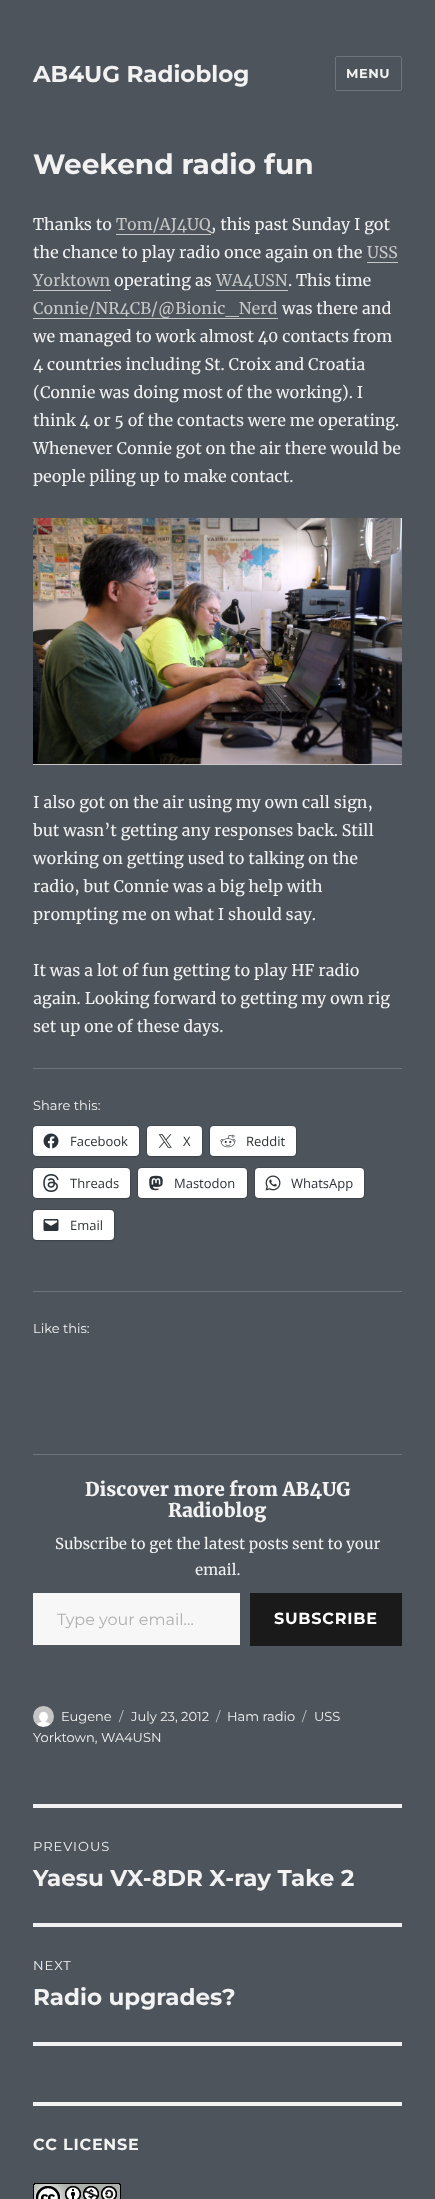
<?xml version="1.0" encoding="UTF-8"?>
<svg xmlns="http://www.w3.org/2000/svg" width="435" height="2199">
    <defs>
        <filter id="blur1" x="-50%" y="-200%" width="200%" height="500%"><feGaussianBlur stdDeviation="1"/></filter>
    </defs>
    <rect width="100%" height="100%" fill="#4D545C"/>
    <text x="33" y="82" font-family="Montserrat" font-size="23" font-weight="100" fill="#F2F2F2">AB4UG Radioblog</text>
    <rect x="335.5" y="56.5" width="66" height="34" rx="1.5" fill="none" stroke="#6E747A"/>
    <text x="346" y="78" font-family="Montserrat" font-size="13" font-weight="100" letter-spacing="0.5" fill="#F2F2F2">MENU</text>
    <text x="33" y="174" font-family="Montserrat" font-size="28" font-weight="100" fill="#F2F2F2">Weekend radio fun</text>
    <text x="33" y="230" font-family="Merriweather" font-size="16" fill="#F2F2F2">Thanks to</text>
    <text x="116" y="230" font-family="Merriweather" font-size="16" fill="#C7C7C7">Tom/AJ4UQ</text>
    <rect x="116" y="234" width="95" height="1" fill="#C7C7C7"/>
    <text x="211" y="230" font-family="Merriweather" font-size="16" fill="#F2F2F2">, this past Sunday I got</text>
    <text x="33" y="258" font-family="Merriweather" font-size="16" fill="#F2F2F2">the chance to play radio once again on the</text>
    <text x="367" y="258" font-family="Merriweather" font-size="16" fill="#C7C7C7">USS</text>
    <rect x="367" y="262" width="31" height="1" fill="#C7C7C7"/>
    <text x="33" y="286" font-family="Merriweather" font-size="16" fill="#C7C7C7">Yorktown</text>
    <rect x="33" y="290" width="78" height="1" fill="#C7C7C7"/>
    <text x="114" y="286" font-family="Merriweather" font-size="16" fill="#F2F2F2">operating as</text>
    <text x="216" y="286" font-family="Merriweather" font-size="16" fill="#C7C7C7">WA4USN</text>
    <rect x="216" y="290" width="72" height="1" fill="#C7C7C7"/>
    <text x="288" y="286" font-family="Merriweather" font-size="16" fill="#F2F2F2">. This time</text>
    <rect x="33" y="318" width="245" height="1" fill="#C7C7C7"/>
    <text x="33" y="314" font-family="Merriweather" font-size="16" fill="#C7C7C7">Connie/NR4CB/@Bionic_Nerd</text>
    <text x="282" y="314" font-family="Merriweather" font-size="16" fill="#F2F2F2">was there and</text>
    <text font-family="Merriweather" font-size="16" fill="#F2F2F2">
        <tspan x="33" y="342">we managed to work almost 40 contacts from</tspan>
        <tspan x="33" y="370">4 countries including St. Croix and Croatia</tspan>
        <tspan x="33" y="398">(Connie was doing most of the working). I</tspan>
        <tspan x="33" y="426">think 4 or 5 of the contacts were me operating.</tspan>
        <tspan x="33" y="454">Whenever Connie got on the air there would be</tspan>
        <tspan x="33" y="482">people piling up to make contact.</tspan>
    </text>
    <rect x="33" y="764" width="369" height="1" fill="#C7C7C7"/>
    <image x="33" y="518" width="369" height="246" href="img_01.png"/>
    <text font-family="Merriweather" font-size="16" fill="#F2F2F2">
        <tspan x="33" y="808">I also got on the air using my own call sign,</tspan>
        <tspan x="33" y="836">but wasn’t getting any responses back. Still</tspan>
        <tspan x="33" y="864">working on getting used to talking on the</tspan>
        <tspan x="33" y="892">radio, but Connie was a big help with</tspan>
        <tspan x="33" y="920">prompting me on what I should say.</tspan>
    </text>
    <text font-family="Merriweather" font-size="16" fill="#F2F2F2">
        <tspan x="33" y="976">It was a lot of fun getting to play HF radio</tspan>
        <tspan x="33" y="1004">again. Looking forward to getting my own rig</tspan>
        <tspan x="33" y="1032">set up one of these days.</tspan>
    </text>
    <rect x="33" y="1068" width="369" height="1" fill="#6E747A"/>
    <text x="33" y="1110" font-family="'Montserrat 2'" font-size="13" font-weight="100" fill="#F2F2F2">Share this:</text>
    <rect x="32.5" y="1125.5" width="107" height="31" rx="4.5" fill="none" stroke="#444A51"/>
    <rect x="33" y="1127" width="106" height="30" rx="4" fill="#000000" fill-opacity="0.12" filter="url(#blur1)"/>
    <rect x="33" y="1126" width="106" height="30" rx="4" fill="#FFFFFF"/>
    <image x="43" y="1133" width="16" height="16" href="img_02.png"/>
    <text x="70" y="1146" font-family="Open Sans" font-size="13" fill="#2C3338">Facebook</text>
    <rect x="146.5" y="1125.5" width="56" height="31" rx="4.5" fill="none" stroke="#444A51"/>
    <rect x="147" y="1127" width="55" height="30" rx="4" fill="#000000" fill-opacity="0.12" filter="url(#blur1)"/>
    <rect x="147" y="1126" width="55" height="30" rx="4" fill="#FFFFFF"/>
    <image x="158" y="1134" width="14" height="14" href="img_03.png"/>
    <text x="183" y="1146" font-family="Open Sans" font-size="13" fill="#2C3338">X</text>
    <rect x="209.5" y="1125.5" width="87" height="31" rx="4.5" fill="none" stroke="#444A51"/>
    <rect x="210" y="1127" width="86" height="30" rx="4" fill="#000000" fill-opacity="0.12" filter="url(#blur1)"/>
    <rect x="210" y="1126" width="86" height="30" rx="4" fill="#FFFFFF"/>
    <image x="220" y="1134" width="16" height="14" href="img_04.png"/>
    <text x="246" y="1146" font-family="Open Sans" font-size="13" fill="#2C3338">Reddit</text>
    <rect x="32.5" y="1167.5" width="98" height="31" rx="4.5" fill="none" stroke="#444A51"/>
    <rect x="33" y="1169" width="97" height="30" rx="4" fill="#000000" fill-opacity="0.12" filter="url(#blur1)"/>
    <rect x="33" y="1168" width="97" height="30" rx="4" fill="#FFFFFF"/>
    <image x="43" y="1174" width="16" height="18" href="img_05.png"/>
    <text x="70" y="1188" font-family="Open Sans" font-size="13" fill="#2C3338">Threads</text>
    <rect x="137.5" y="1167.5" width="110" height="31" rx="4.5" fill="none" stroke="#444A51"/>
    <rect x="138" y="1169" width="109" height="30" rx="4" fill="#000000" fill-opacity="0.12" filter="url(#blur1)"/>
    <rect x="138" y="1168" width="109" height="30" rx="4" fill="#FFFFFF"/>
    <image x="149" y="1175" width="14" height="16" href="img_06.png"/>
    <text x="174" y="1188" font-family="Open Sans" font-size="13" fill="#2C3338">Mastodon</text>
    <rect x="254.5" y="1167.5" width="110" height="31" rx="4.5" fill="none" stroke="#444A51"/>
    <rect x="255" y="1169" width="109" height="30" rx="4" fill="#000000" fill-opacity="0.12" filter="url(#blur1)"/>
    <rect x="255" y="1168" width="109" height="30" rx="4" fill="#FFFFFF"/>
    <image x="265" y="1175" width="16" height="16" href="img_07.png"/>
    <text x="291" y="1188" font-family="Open Sans" font-size="13" fill="#2C3338">WhatsApp</text>
    <rect x="32.5" y="1209.5" width="82" height="31" rx="4.5" fill="none" stroke="#444A51"/>
    <rect x="33" y="1211" width="81" height="30" rx="4" fill="#000000" fill-opacity="0.12" filter="url(#blur1)"/>
    <rect x="33" y="1210" width="81" height="30" rx="4" fill="#FFFFFF"/>
    <image x="43" y="1219" width="16" height="12" href="img_08.png"/>
    <text x="70" y="1230" font-family="Open Sans" font-size="13" fill="#2C3338">Email</text>
    <rect x="33" y="1291" width="369" height="1" fill="#6E747A"/>
    <text x="33" y="1333" font-family="'Montserrat 2'" font-size="13" font-weight="100" fill="#F2F2F2">Like this:</text>
    <rect x="33" y="1454" width="369" height="1" fill="#6E747A"/>
    <text x="85" y="1496" font-family="Merriweather" font-size="19" font-weight="900" fill="#F2F2F2">Discover more from AB4UG</text>
    <text x="168" y="1517" font-family="Merriweather" font-size="19" font-weight="900" fill="#F2F2F2">Radioblog</text>
    <text x="55" y="1549" font-family="Merriweather" font-size="15" fill="#F2F2F2">Subscribe to get the latest posts sent to your</text>
    <text x="195" y="1575" font-family="Merriweather" font-size="15" fill="#F2F2F2">email.</text>
    <rect x="33" y="1593" width="207" height="52" fill="#F7F7F7"/>
    <text x="57" y="1625" font-family="'Montserrat 2'" font-size="16" font-weight="100" fill="#B0B0B0">Type your email…</text>
    <rect x="250" y="1593" width="152" height="53" fill="#1A1A1A"/>
    <text x="274" y="1624" font-family="Montserrat" font-size="16" font-weight="100" letter-spacing="0.75" fill="#FFFFFF">SUBSCRIBE</text>
    <image x="33" y="1706" width="21" height="21" href="img_09.png"/>
    <text x="61" y="1721" font-family="'Montserrat 2'" font-size="13" font-weight="100" fill="#F2F2F2">Eugene</text>
    <text x="119" y="1721" font-family="'Montserrat 2'" font-size="13" font-weight="100" fill="#C1C3C5">/</text>
    <text x="131" y="1721" font-family="'Montserrat 2'" font-size="13" font-weight="100" fill="#F2F2F2">July 23, 2012</text>
    <text x="216" y="1721" font-family="'Montserrat 2'" font-size="13" font-weight="100" fill="#C1C3C5">/</text>
    <text x="227" y="1721" font-family="'Montserrat 2'" font-size="13" font-weight="100" fill="#F2F2F2">Ham radio</text>
    <text x="302" y="1721" font-family="'Montserrat 2'" font-size="13" font-weight="100" fill="#C1C3C5">/</text>
    <text x="314" y="1721" font-family="'Montserrat 2'" font-size="13" font-weight="100" fill="#F2F2F2">USS</text>
    <text x="33" y="1742" font-family="'Montserrat 2'" font-size="13" font-weight="100" fill="#F2F2F2">Yorktown, WA4USN</text>
    <rect x="33" y="1804" width="369" height="4" fill="#F2F2F2"/>
    <rect x="33" y="2042" width="369" height="4" fill="#F2F2F2"/>
    <text x="33" y="1851" font-family="'Montserrat 2'" font-size="13" font-weight="100" letter-spacing="1" fill="#F2F2F2">PREVIOUS</text>
    <text x="33" y="1886" font-family="Montserrat" font-size="23" font-weight="100" fill="#F2F2F2">Yaesu VX-8DR X-ray Take 2</text>
    <rect x="33" y="1923" width="369" height="4" fill="#F2F2F2"/>
    <text x="33" y="1970" font-family="'Montserrat 2'" font-size="13" font-weight="100" letter-spacing="1" fill="#F2F2F2">NEXT</text>
    <text x="33" y="2005" font-family="Montserrat" font-size="23" font-weight="100" fill="#F2F2F2">Radio upgrades?</text>
    <rect x="33" y="2102" width="369" height="4" fill="#F2F2F2"/>
    <text x="33" y="2150" font-family="Montserrat" font-size="16" font-weight="100" letter-spacing="0.75" fill="#F2F2F2">CC LICENSE</text>
    <image x="33" y="2183" width="88" height="16" href="img_10.png"/>
</svg>
